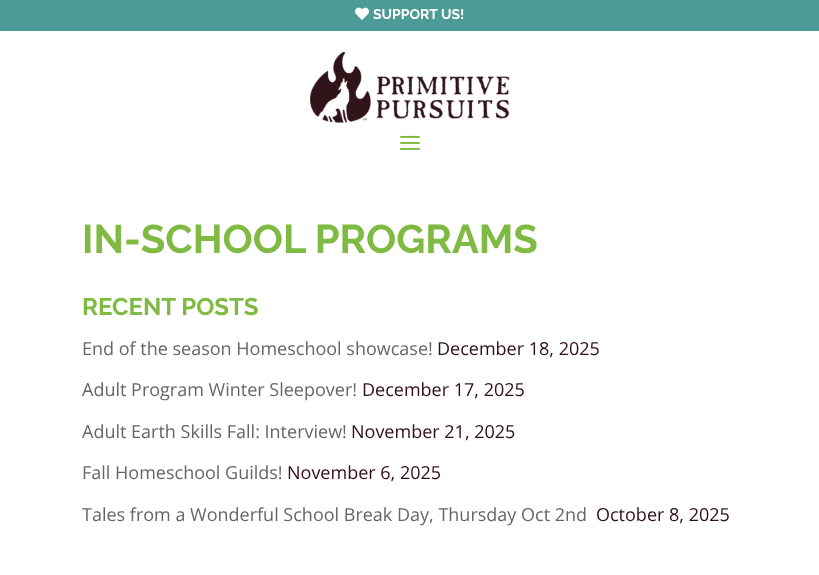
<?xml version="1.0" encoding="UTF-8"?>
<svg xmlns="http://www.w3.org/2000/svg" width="819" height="575">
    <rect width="100%" height="100%" fill="#FFFFFF"/>
    <rect x="0" y="0" width="819" height="31" fill="#4C9B96"/>
    <image x="355" y="7" width="14" height="13" href="img_01.png"/>
    <text x="373" y="19" font-family="Raleway" font-size="14" font-weight="100" fill="#FFFFFF">SUPPORT US!</text>
    <image x="310" y="52" width="200" height="71" href="img_02.png"/>
    <image x="400" y="135" width="20" height="15" href="img_03.png"/>
    <text x="82" y="253" font-family="Raleway" font-size="40" font-weight="100" fill="#7FBA42">IN-SCHOOL PROGRAMS</text>
    <text x="82" y="315" font-family="Raleway" font-size="24" font-weight="100" fill="#7FBA42">RECENT POSTS</text>
    <text x="82" y="355" font-family="Open Sans" font-size="18" fill="#666666">End of the season Homeschool showcase!</text>
    <text x="437" y="355" font-family="Open Sans" font-size="18" fill="#320F18">December 18, 2025</text>
    <text x="82" y="396" font-family="Open Sans" font-size="18" fill="#666666">Adult Program Winter Sleepover!</text>
    <text x="362" y="396" font-family="Open Sans" font-size="18" fill="#320F18">December 17, 2025</text>
    <text x="82" y="438" font-family="Open Sans" font-size="18" fill="#666666">Adult Earth Skills Fall: Interview!</text>
    <text x="351" y="438" font-family="Open Sans" font-size="18" fill="#320F18">November 21, 2025</text>
    <text x="82" y="479" font-family="Open Sans" font-size="18" fill="#666666">Fall Homeschool Guilds!</text>
    <text x="287" y="479" font-family="Open Sans" font-size="18" fill="#320F18">November 6, 2025</text>
    <text x="82" y="521" font-family="Open Sans" font-size="18" fill="#666666">Tales from a Wonderful School Break Day, Thursday Oct 2nd</text>
    <text x="596" y="521" font-family="Open Sans" font-size="18" fill="#320F18">October 8, 2025</text>
</svg>
